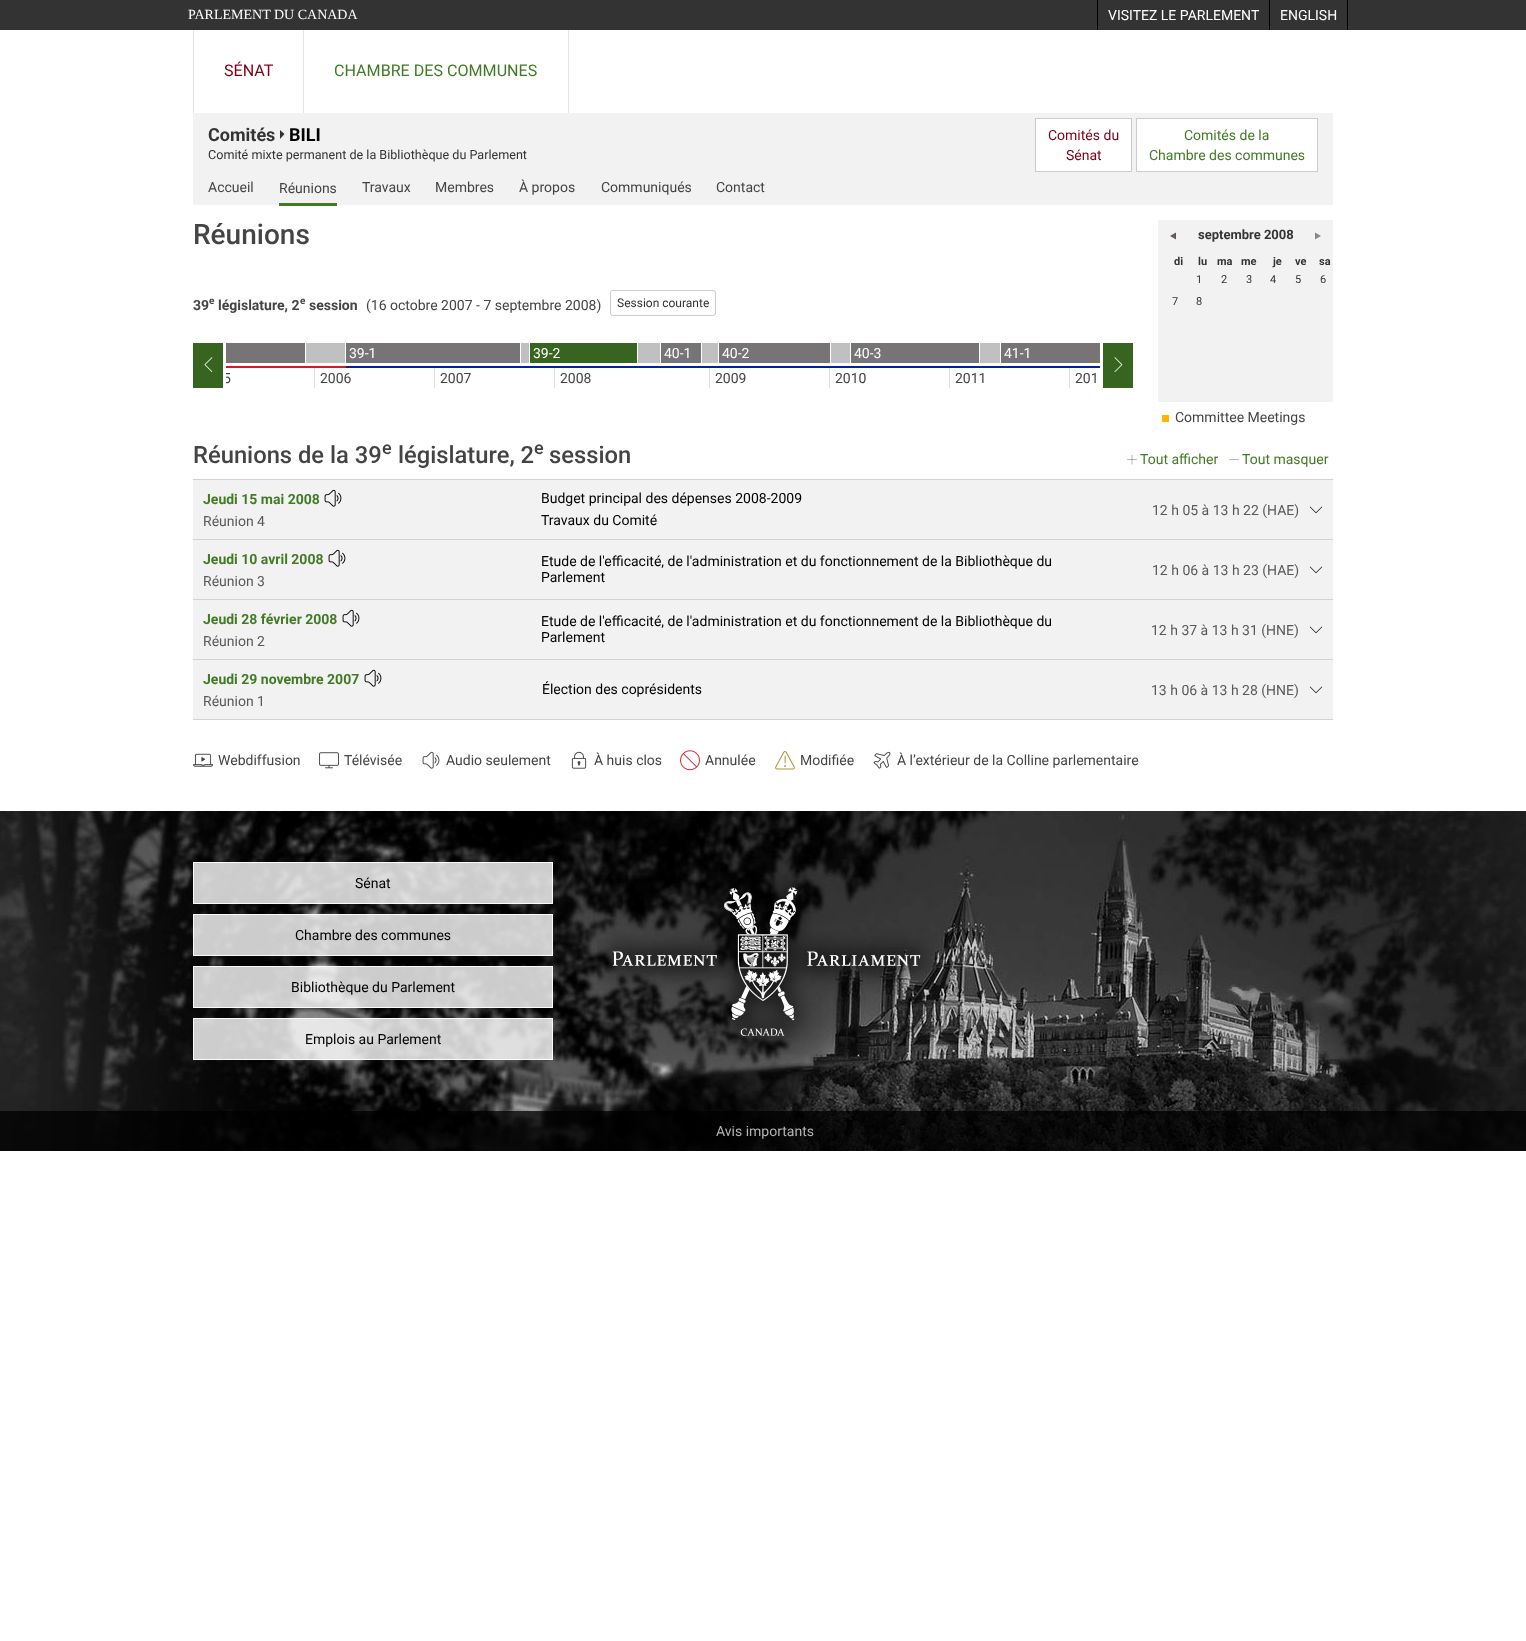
<?xml version="1.0" encoding="UTF-8"?>
<svg xmlns="http://www.w3.org/2000/svg" width="1526" height="1641">
    <defs>
        <clipPath id="clip1"><rect x="226" y="343" width="874" height="45"/></clipPath>
    </defs>
    <rect width="100%" height="100%" fill="#FFFFFF"/>
    <rect x="0" y="0" width="1526" height="30" fill="#333333"/>
    <text x="188" y="19" font-family="Liberation Serif" font-size="14" fill="#FFFFFF">PARLEMENT DU CANADA</text>
    <rect x="1097" y="0" width="1" height="30" fill="#000000"/>
    <text x="1108" y="20" font-family="Roboto" font-size="14" fill="#FFFFFF">VISITEZ LE PARLEMENT</text>
    <rect x="1347" y="0" width="1" height="30" fill="#000000"/>
    <rect x="1269" y="0" width="1" height="30" fill="#000000"/>
    <text x="1280" y="20" font-family="Roboto" font-size="14" fill="#FFFFFF">ENGLISH</text>
    <rect x="193" y="30" width="1" height="83" fill="#E5E5E5"/>
    <text x="224" y="76" font-family="Roboto" font-size="16.1" fill="#7F0116">SÉNAT</text>
    <rect x="568" y="30" width="1" height="83" fill="#E5E5E5"/>
    <rect x="303" y="30" width="1" height="83" fill="#E5E5E5"/>
    <text x="334" y="76" font-family="Roboto" font-size="16.1" fill="#427A26">CHAMBRE DES COMMUNES</text>
    <rect x="193" y="113" width="1140" height="92" fill="#F2F2F2"/>
    <text x="208" y="141" font-family="Roboto" font-size="18" font-weight="700" fill="#333333">Comités</text>
    <path d="M 280 130 L 284.5 134 L 280 139 Z" fill="#333333"/>
    <text x="289" y="141" font-family="Roboto" font-size="18" font-weight="700" fill="#000000">BILI</text>
    <text x="208" y="159" font-family="Roboto" font-size="12.6" fill="#333333">Comité mixte permanent de la Bibliothèque du Parlement</text>
    <rect x="1035.5" y="118.5" width="96" height="53" fill="#FFFFFF" stroke="#CCCCCC"/>
    <text x="1048" y="140" font-family="Roboto" font-size="14" fill="#7F0116">Comités du</text>
    <text x="1066" y="160" font-family="Roboto" font-size="14" fill="#7F0116">Sénat</text>
    <rect x="1136.5" y="118.5" width="181" height="53" fill="#FFFFFF" stroke="#CCCCCC"/>
    <text x="1184" y="140" font-family="Roboto" font-size="14" fill="#427A26">Comités de la</text>
    <text x="1149" y="160" font-family="Roboto" font-size="14" fill="#427A26">Chambre des communes</text>
    <text x="208" y="192" font-family="Roboto" font-size="14" fill="#444444">Accueil</text>
    <rect x="279" y="203" width="58" height="3" fill="#427A26"/>
    <text x="279" y="193" font-family="Roboto" font-size="14" fill="#444444">Réunions</text>
    <text x="362" y="192" font-family="Roboto" font-size="14" fill="#444444">Travaux</text>
    <text x="435" y="192" font-family="Roboto" font-size="14" fill="#444444">Membres</text>
    <text x="519" y="192" font-family="Roboto" font-size="14" fill="#444444">À propos</text>
    <text x="601" y="192" font-family="Roboto" font-size="14" fill="#444444">Communiqués</text>
    <text x="716" y="192" font-family="Roboto" font-size="14" fill="#444444">Contact</text>
    <text x="193" y="244" font-family="Roboto" font-size="28" font-weight="500" fill="#444444">Réunions</text>
    <text x="193" y="310" font-family="Roboto" font-size="14" font-weight="700" fill="#444444">39</text>
    <text x="209" y="304" font-family="Roboto" font-size="10" font-weight="700" fill="#444444">e</text>
    <text x="218" y="310" font-family="Roboto" font-size="14" font-weight="700" fill="#444444">législature, 2</text>
    <text x="300" y="304" font-family="Roboto" font-size="10" font-weight="700" fill="#444444">e</text>
    <text x="309" y="310" font-family="Roboto" font-size="14" font-weight="700" fill="#444444">session</text>
    <text x="366" y="310" font-family="Roboto" font-size="14" fill="#444444">(16 octobre 2007 - 7 septembre 2008)</text>
    <rect x="610.5" y="290.5" width="105" height="25" rx="2.5" fill="none" stroke="#CCCCCC"/>
    <text x="617" y="307" font-family="Roboto" font-size="12" fill="#333333">Session courante</text>
    <rect x="193" y="343" width="30" height="45" fill="#37651F"/>
    <image x="204" y="357" width="9" height="15" href="img_01.png"/>
    <rect x="226" y="366" width="120" height="2" fill="#D71920"/>
    <rect x="226" y="343" width="79" height="20" fill="#767474"/>
    <rect x="306" y="343" width="39" height="20" fill="#C0C0C0"/>
    <rect x="346" y="366" width="754" height="2" fill="#002395"/>
    <rect x="346" y="343" width="174" height="20" fill="#767474"/>
    <text x="349" y="358" font-family="Roboto" font-size="14" fill="#FFFFFF">39-1</text>
    <rect x="521" y="343" width="8" height="20" fill="#C0C0C0"/>
    <rect x="530" y="343" width="107" height="20" fill="#37651F"/>
    <text x="533" y="358" font-family="Roboto" font-size="14" fill="#FFFFFF">39-2</text>
    <rect x="638" y="343" width="22" height="20" fill="#C0C0C0"/>
    <rect x="661" y="343" width="40" height="20" fill="#767474"/>
    <text x="664" y="358" font-family="Roboto" font-size="14" fill="#FFFFFF">40-1</text>
    <rect x="702" y="343" width="16" height="20" fill="#C0C0C0"/>
    <rect x="719" y="343" width="111" height="20" fill="#767474"/>
    <text x="722" y="358" font-family="Roboto" font-size="14" fill="#FFFFFF">40-2</text>
    <rect x="831" y="343" width="19" height="20" fill="#C0C0C0"/>
    <rect x="851" y="343" width="128" height="20" fill="#767474"/>
    <text x="854" y="358" font-family="Roboto" font-size="14" fill="#FFFFFF">40-3</text>
    <rect x="980" y="343" width="20" height="20" fill="#C0C0C0"/>
    <rect x="1001" y="343" width="99" height="20" fill="#767474"/>
    <text x="1004" y="358" font-family="Roboto" font-size="14" fill="#FFFFFF">41-1</text>
    <g clip-path="url(#clip1)">
        <text x="223" y="383" font-family="Roboto" font-size="14" fill="#444444">5</text>
    </g>
    <rect x="314" y="368" width="1" height="20" fill="#E0E0E0"/>
    <text x="320" y="383" font-family="Roboto" font-size="14" fill="#444444">2006</text>
    <rect x="434" y="368" width="1" height="20" fill="#E0E0E0"/>
    <text x="440" y="383" font-family="Roboto" font-size="14" fill="#444444">2007</text>
    <rect x="554" y="368" width="1" height="20" fill="#E0E0E0"/>
    <text x="560" y="383" font-family="Roboto" font-size="14" fill="#444444">2008</text>
    <rect x="709" y="368" width="1" height="20" fill="#E0E0E0"/>
    <text x="715" y="383" font-family="Roboto" font-size="14" fill="#444444">2009</text>
    <rect x="829" y="368" width="1" height="20" fill="#E0E0E0"/>
    <text x="835" y="383" font-family="Roboto" font-size="14" fill="#444444">2010</text>
    <rect x="949" y="368" width="1" height="20" fill="#E0E0E0"/>
    <text x="955" y="383" font-family="Roboto" font-size="14" fill="#444444">2011</text>
    <rect x="1069" y="368" width="1" height="20" fill="#E0E0E0"/>
    <text x="1075" y="383" font-family="Roboto" font-size="14" fill="#444444">201</text>
    <rect x="1103" y="343" width="30" height="45" fill="#37651F"/>
    <image x="1114" y="357" width="9" height="15" href="img_02.png"/>
    <rect x="1158" y="220" width="175" height="182" fill="#F2F2F2"/>
    <image x="1170" y="232" width="6" height="8" href="img_03.png"/>
    <text x="1198" y="239" font-family="Roboto" font-size="13" font-weight="700" fill="#333333">septembre 2008</text>
    <image x="1315" y="232" width="6" height="8" href="img_04.png"/>
    <text x="1174" y="265" font-family="Roboto" font-size="11" font-weight="700" fill="#333333">di</text>
    <text x="1198" y="265" font-family="Roboto" font-size="11" font-weight="700" fill="#333333">lu</text>
    <text x="1217" y="265" font-family="Roboto" font-size="11" font-weight="700" fill="#333333">ma</text>
    <text x="1241" y="265" font-family="Roboto" font-size="11" font-weight="700" fill="#333333">me</text>
    <text x="1273" y="265" font-family="Roboto" font-size="11" font-weight="700" fill="#333333">je</text>
    <text x="1295" y="265" font-family="Roboto" font-size="11" font-weight="700" fill="#333333">ve</text>
    <text x="1319" y="265" font-family="Roboto" font-size="11" font-weight="700" fill="#333333">sa</text>
    <text x="1196" y="283" font-family="Roboto" font-size="11" fill="#333333">1</text>
    <text x="1221" y="283" font-family="Roboto" font-size="11" fill="#333333">2</text>
    <text x="1246" y="283" font-family="Roboto" font-size="11" fill="#333333">3</text>
    <text x="1270" y="283" font-family="Roboto" font-size="11" fill="#333333">4</text>
    <text x="1295" y="283" font-family="Roboto" font-size="11" fill="#333333">5</text>
    <text x="1320" y="283" font-family="Roboto" font-size="11" fill="#333333">6</text>
    <text x="1172" y="305" font-family="Roboto" font-size="11" fill="#333333">7</text>
    <text x="1196" y="305" font-family="Roboto" font-size="11" fill="#333333">8</text>
    <rect x="1162" y="415" width="7" height="7" fill="#FFB500"/>
    <text x="1175" y="422" font-family="Roboto" font-size="14" fill="#444444">Committee Meetings</text>
    <text x="193" y="463" font-family="Roboto" font-size="23.75" font-weight="500" fill="#444444">Réunions de la 39</text>
    <text x="382" y="454" font-family="Roboto" font-size="18" font-weight="500" fill="#444444">e</text>
    <text x="398" y="463" font-family="Roboto" font-size="23.75" font-weight="500" fill="#444444">législature, 2</text>
    <text x="534" y="454" font-family="Roboto" font-size="18" font-weight="500" fill="#444444">e</text>
    <text x="549" y="463" font-family="Roboto" font-size="23.75" font-weight="500" fill="#444444">session</text>
    <image x="1127" y="454" width="10" height="11" href="img_05.png"/>
    <text x="1140" y="464" font-family="Roboto" font-size="14" fill="#427A26">Tout afficher</text>
    <image x="1229" y="459" width="10" height="1" href="img_06.png"/>
    <text x="1242" y="464" font-family="Roboto" font-size="14" fill="#427A26">Tout masquer</text>
    <rect x="193" y="479" width="1140" height="1" fill="#D2D2D2"/>
    <rect x="193" y="539" width="1140" height="1" fill="#D2D2D2"/>
    <rect x="193" y="480" width="1140" height="59" fill="#F2F2F2"/>
    <text x="203" y="504" font-family="Roboto" font-size="14" font-weight="700" fill="#427A26">Jeudi 15 mai 2008</text>
    <image x="324" y="489" width="18" height="18" href="img_07.png"/>
    <text x="203" y="526" font-family="Roboto" font-size="14" fill="#595959">Réunion 4</text>
    <text font-family="Roboto" font-size="14" fill="#000000">
        <tspan x="541" y="503">Budget principal des dépenses 2008-2009</tspan>
        <tspan x="541" y="525">Travaux du Comité</tspan>
    </text>
    <text x="1152" y="515" font-family="Roboto" font-size="14" fill="#595959">12 h 05 à 13 h 22 (HAE)</text>
    <image x="1309" y="506" width="14" height="8" href="img_08.png"/>
    <rect x="193" y="599" width="1140" height="1" fill="#D2D2D2"/>
    <rect x="193" y="540" width="1140" height="59" fill="#F2F2F2"/>
    <text x="203" y="564" font-family="Roboto" font-size="14" font-weight="700" fill="#427A26">Jeudi 10 avril 2008</text>
    <image x="328" y="549" width="18" height="18" href="img_07.png"/>
    <text x="203" y="586" font-family="Roboto" font-size="14" fill="#595959">Réunion 3</text>
    <text font-family="Roboto" font-size="14" fill="#000000">
        <tspan x="541" y="566">Etude de l'efficacité, de l'administration et du fonctionnement de la Bibliothèque du</tspan>
        <tspan x="541" y="582">Parlement</tspan>
    </text>
    <text x="1152" y="575" font-family="Roboto" font-size="14" fill="#595959">12 h 06 à 13 h 23 (HAE)</text>
    <image x="1309" y="566" width="14" height="8" href="img_08.png"/>
    <rect x="193" y="659" width="1140" height="1" fill="#D2D2D2"/>
    <rect x="193" y="600" width="1140" height="59" fill="#F2F2F2"/>
    <text x="203" y="624" font-family="Roboto" font-size="14" font-weight="700" fill="#427A26">Jeudi 28 février 2008</text>
    <image x="342" y="609" width="18" height="18" href="img_07.png"/>
    <text x="203" y="646" font-family="Roboto" font-size="14" fill="#595959">Réunion 2</text>
    <text font-family="Roboto" font-size="14" fill="#000000">
        <tspan x="541" y="626">Etude de l'efficacité, de l'administration et du fonctionnement de la Bibliothèque du</tspan>
        <tspan x="541" y="642">Parlement</tspan>
    </text>
    <text x="1151" y="635" font-family="Roboto" font-size="14" fill="#595959">12 h 37 à 13 h 31 (HNE)</text>
    <image x="1309" y="626" width="14" height="8" href="img_08.png"/>
    <rect x="193" y="719" width="1140" height="1" fill="#D2D2D2"/>
    <rect x="193" y="660" width="1140" height="59" fill="#F2F2F2"/>
    <text x="203" y="684" font-family="Roboto" font-size="14" font-weight="700" fill="#427A26">Jeudi 29 novembre 2007</text>
    <image x="364" y="669" width="18" height="18" href="img_07.png"/>
    <text x="203" y="706" font-family="Roboto" font-size="14" fill="#595959">Réunion 1</text>
    <text x="542" y="694" font-family="Roboto" font-size="14" fill="#000000">Élection des coprésidents</text>
    <text x="1151" y="695" font-family="Roboto" font-size="14" fill="#595959">13 h 06 à 13 h 28 (HNE)</text>
    <image x="1309" y="686" width="14" height="8" href="img_08.png"/>
    <image x="193" y="753" width="20" height="14" href="img_09.png"/>
    <text x="218" y="765" font-family="Roboto" font-size="14" fill="#444444">Webdiffusion</text>
    <image x="319" y="752" width="20" height="17" href="img_10.png"/>
    <text x="344" y="765" font-family="Roboto" font-size="14" fill="#444444">Télévisée</text>
    <image x="422" y="751" width="18" height="18" href="img_11.png"/>
    <text x="446" y="765" font-family="Roboto" font-size="14" fill="#444444">Audio seulement</text>
    <image x="571" y="751" width="16" height="18" href="img_12.png"/>
    <text x="594" y="765" font-family="Roboto" font-size="14" fill="#444444">À huis clos</text>
    <image x="680" y="750" width="20" height="21" href="img_13.png"/>
    <text x="705" y="765" font-family="Roboto" font-size="14" fill="#444444">Annulée</text>
    <image x="775" y="751" width="20" height="19" href="img_14.png"/>
    <text x="800" y="765" font-family="Roboto" font-size="14" fill="#444444">Modifiée</text>
    <image x="873" y="751" width="18" height="18" href="img_15.png"/>
    <text x="897" y="765" font-family="Roboto" font-size="14" fill="#444444">À l’extérieur de la Colline parlementaire</text>
    <image x="0" y="811" width="1526" height="340" href="img_16.png"/>
    <rect x="0" y="811" width="1526" height="300" fill="#000000" fill-opacity="0.2"/>
    <rect x="193" y="862" width="360" height="42" fill="#FFFFFF" fill-opacity="0.8"/>
    <rect x="193.5" y="862.5" width="359" height="41" fill="none" stroke="#FFFFFF" stroke-opacity="0.9"/>
    <text x="355" y="888" font-family="Roboto" font-size="14" fill="#000000">Sénat</text>
    <rect x="193" y="914" width="360" height="42" fill="#FFFFFF" fill-opacity="0.8"/>
    <rect x="193.5" y="914.5" width="359" height="41" fill="none" stroke="#FFFFFF" stroke-opacity="0.9"/>
    <text x="295" y="940" font-family="Roboto" font-size="14" fill="#000000">Chambre des communes</text>
    <rect x="193" y="966" width="360" height="42" fill="#FFFFFF" fill-opacity="0.8"/>
    <rect x="193.5" y="966.5" width="359" height="41" fill="none" stroke="#FFFFFF" stroke-opacity="0.9"/>
    <text x="291" y="992" font-family="Roboto" font-size="14" fill="#000000">Bibliothèque du Parlement</text>
    <rect x="193" y="1018" width="360" height="42" fill="#FFFFFF" fill-opacity="0.8"/>
    <rect x="193.5" y="1018.5" width="359" height="41" fill="none" stroke="#FFFFFF" stroke-opacity="0.9"/>
    <text x="305" y="1044" font-family="Roboto" font-size="14" fill="#000000">Emplois au Parlement</text>
    <image x="597" y="874" width="342" height="181" href="img_17.png"/>
    <rect x="0" y="1111" width="1526" height="40" fill="#000000" fill-opacity="0.8"/>
    <text x="716" y="1136" font-family="Roboto" font-size="14" fill="#B3B3B3">Avis importants</text>
</svg>
